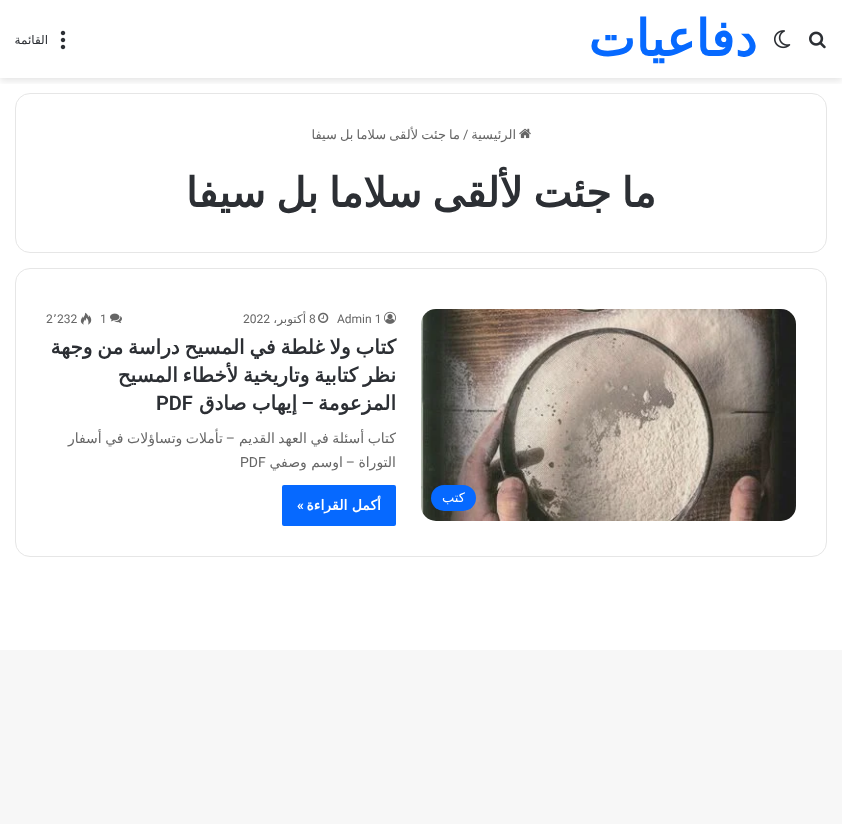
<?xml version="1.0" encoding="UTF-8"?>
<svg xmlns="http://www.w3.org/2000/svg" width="842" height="824">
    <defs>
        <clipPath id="clip1"><rect x="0" y="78" width="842" height="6"/></clipPath>
        <filter id="blur1" x="-50%" y="-200%" width="200%" height="500%"><feGaussianBlur stdDeviation="3.5"/></filter>
    </defs>
    <rect width="100%" height="100%" fill="#F7F7F7"/>
    <rect x="0" y="0" width="842" height="650" fill="#FFFFFF"/>
    <g clip-path="url(#clip1)">
        <rect x="0" y="3" width="842" height="78" fill="#000000" fill-opacity="0.1" filter="url(#blur1)"/>
    </g>
    <image x="809" y="31" width="17" height="18" href="img_01.png"/>
    <image x="774" y="30" width="17" height="19" href="img_02.png"/>
    <text x="757" y="56" font-family="DejaVu Sans" font-size="50" font-weight="700" direction="rtl" fill="#0669FF">دفاعيات</text>
    <image x="60" y="30" width="6" height="20" href="img_03.png"/>
    <text x="48" y="44" font-family="DejaVu Sans" font-size="12" direction="rtl" fill="#2C2F34">القائمة</text>
    <rect x="15.5" y="93.5" width="811" height="159" rx="14.5" fill="none" stroke="#E6E6E6"/>
    <image x="519" y="128" width="12" height="11" href="img_04.png"/>
    <text x="516" y="139" font-family="DejaVu Sans" font-size="13" direction="rtl" fill="#666666">الرئيسية</text>
    <text x="463" y="139" font-family="Roboto" font-size="13" fill="#666666">/</text>
    <text x="460" y="139" word-spacing="-1" font-family="DejaVu Sans" font-size="13" direction="rtl" fill="#666666">ما جئت لألقى سلاما بل سيفا</text>
    <text x="656" y="207" word-spacing="-2.75" font-family="DejaVu Sans" font-size="41" font-weight="700" direction="rtl" fill="#2C2F34">ما جئت لألقى سلاما بل سيفا</text>
    <rect x="15.5" y="268.5" width="811" height="288" rx="14.5" fill="none" stroke="#E6E6E6"/>
    <image x="421" y="309" width="375" height="212" href="img_05.png"/>
    <rect x="431" y="485" width="45" height="26" rx="13" fill="#0669FF"/>
    <text x="465" y="502" font-family="DejaVu Sans" font-size="13" direction="rtl" fill="#FFFFFF">كتب</text>
    <image x="384" y="311" width="12" height="13" href="img_06.png"/>
    <text x="337" y="323" font-family="Roboto" font-size="12" fill="#666666">Admin 1</text>
    <image x="318" y="312" width="11" height="11" href="img_07.png"/>
    <text x="309" y="323" font-family="Roboto" font-size="12" fill="#666666">8</text>
    <text x="306" y="323" font-family="DejaVu Sans" font-size="12" direction="rtl" fill="#666666">أكتوبر،</text>
    <text x="243" y="323" font-family="Roboto" font-size="12" fill="#666666">2022</text>
    <image x="110" y="313" width="12" height="10" href="img_08.png"/>
    <text x="100" y="323" font-family="Roboto" font-size="12" fill="#666666">1</text>
    <image x="80" y="312" width="12" height="13" href="img_09.png"/>
    <text x="57" y="323" font-family="Roboto" font-size="12" fill="#666666">232</text>
    <text x="53" y="323" font-family="DejaVu Sans" font-size="12" fill="#666666">٬</text>
    <text x="46" y="323" font-family="Roboto" font-size="12" fill="#666666">2</text>
    <text font-family="DejaVu Sans" font-size="20" font-weight="700" direction="rtl" fill="#2C2F34">
        <tspan x="396" y="354" word-spacing="-1.5">كتاب ولا غلطة في المسيح دراسة من وجهة</tspan>
        <tspan x="396" y="382" word-spacing="-1.5">نظر كتابية وتاريخية لأخطاء المسيح</tspan>
        <tspan x="396" y="410">المزعومة</tspan>
    </text>
    <text x="314" y="410" font-family="Roboto" font-size="20" font-weight="600" direction="rtl" fill="#2C2F34">–</text>
    <text x="297" y="410" word-spacing="-1" font-family="DejaVu Sans" font-size="20" font-weight="700" direction="rtl" fill="#2C2F34">إيهاب صادق</text>
    <text x="156" y="410" font-family="Roboto" font-size="20" font-weight="600" fill="#2C2F34">PDF</text>
    <text x="396" y="443" word-spacing="-1" font-family="DejaVu Sans" font-size="14" direction="rtl" fill="#666666">كتاب أسئلة في العهد القديم</text>
    <text x="235" y="443" font-family="Roboto" font-size="14" direction="rtl" fill="#666666">–</text>
    <text x="223" y="443" word-spacing="-1" font-family="DejaVu Sans" font-size="14" direction="rtl" fill="#666666">تأملات وتساؤلات في أسفار</text>
    <text x="396" y="467" font-family="DejaVu Sans" font-size="14" direction="rtl" fill="#666666">التوراة</text>
    <text x="355" y="467" font-family="Roboto" font-size="14" direction="rtl" fill="#666666">–</text>
    <text x="343" y="467" font-family="DejaVu Sans" font-size="14" direction="rtl" fill="#666666">اوسم وصفي</text>
    <text x="240" y="467" font-family="Roboto" font-size="14" fill="#666666">PDF</text>
    <rect x="282" y="485" width="114" height="41" rx="2" fill="#0669FF"/>
    <text x="381" y="510" font-family="DejaVu Sans" font-size="14" font-weight="700" direction="rtl" fill="#FFFFFF">أكمل القراءة</text>
    <text x="304" y="510" font-family="Roboto" font-size="14" font-weight="600" direction="rtl" fill="#FFFFFF">»</text>
</svg>
